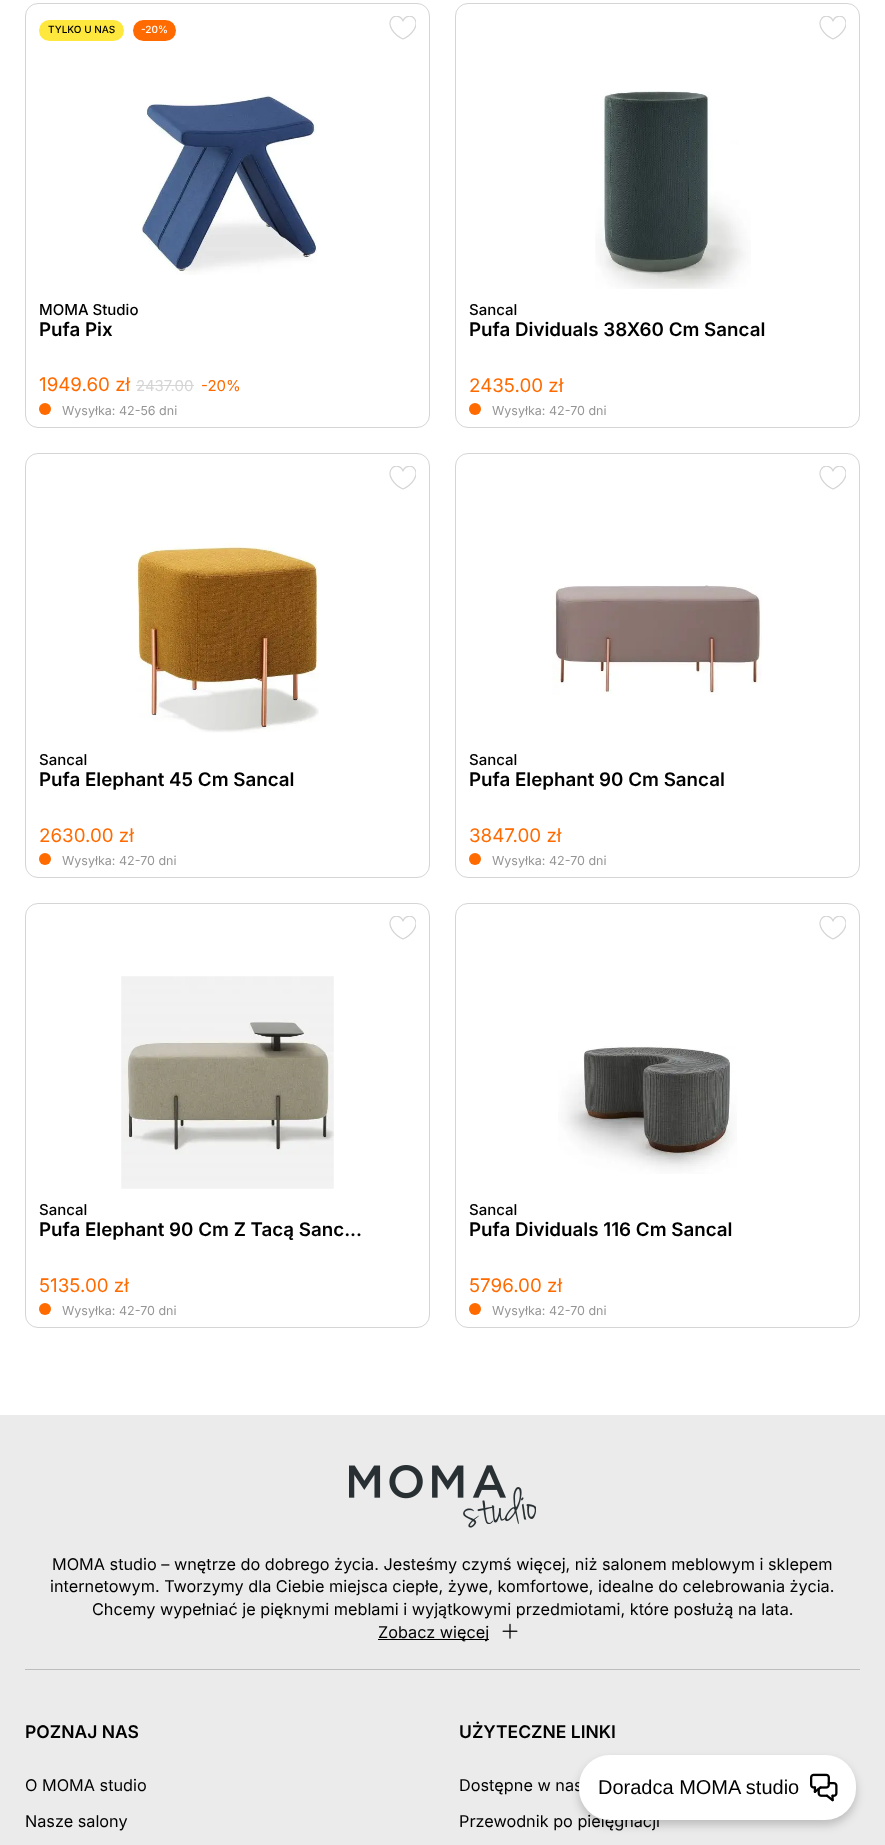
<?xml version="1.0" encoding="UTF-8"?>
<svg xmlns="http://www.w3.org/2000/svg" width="885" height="1845">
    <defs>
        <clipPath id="clip1"><rect x="389" y="16" width="27" height="24"/></clipPath>
        <clipPath id="clip2"><rect x="819" y="16" width="27" height="24"/></clipPath>
        <clipPath id="clip3"><rect x="389" y="466" width="27" height="24"/></clipPath>
        <clipPath id="clip4"><rect x="819" y="466" width="27" height="24"/></clipPath>
        <clipPath id="clip5"><rect x="389" y="916" width="27" height="24"/></clipPath>
        <clipPath id="clip6"><rect x="819" y="916" width="27" height="24"/></clipPath>
        <filter id="blur1" x="-50%" y="-200%" width="200%" height="500%"><feGaussianBlur stdDeviation="5"/></filter>
    </defs>
    <rect width="100%" height="100%" fill="#FFFFFF"/>
    <rect x="25.5" y="3.5" width="404" height="424" rx="12.5" fill="none" stroke="#D5D5D5"/>
    <rect x="39" y="20" width="85" height="21" rx="10.5" fill="#FFE83D"/>
    <text x="48" y="33" font-family="Inter" font-size="10" font-weight="500" fill="#000000">TYLKO U NAS</text>
    <rect x="133" y="20" width="43" height="21" rx="10.5" fill="#FF6B00"/>
    <text x="141" y="33" font-family="Inter" font-size="10" font-weight="500" fill="#FFFFFF">-20%</text>
    <g clip-path="url(#clip1)">
        <path d="M 403 39 C 393.5 34.5 387.5 25.5 391 19.5 C 394 14 401.5 16 403 21 C 404.5 16 412 14 415 19.5 C 418.5 25.5 412.5 34.5 403 39 Z" fill="none" stroke="#D5D5D5" stroke-width="1.2" stroke-linejoin="round"/>
    </g>
    <image x="141" y="95" width="176" height="180" href="img_01.png"/>
    <text x="39" y="315" font-family="Inter" font-size="15" font-weight="500" fill="#000000">MOMA Studio</text>
    <text x="39" y="336" font-family="Inter" font-size="18.75" font-weight="600" fill="#000000">Pufa Pix</text>
    <text x="39" y="391" font-family="Inter" font-size="18.75" fill="#FF6B00">1949.60 zł</text>
    <text x="136" y="391" font-family="Inter" font-size="15" fill="#D5D5D5">2437.00</text>
    <rect x="136" y="385" width="58" height="1" fill="#D5D5D5"/>
    <text x="201" y="391" font-family="Inter" font-size="15" fill="#FF6B00">-20%</text>
    <circle cx="45" cy="409" r="6" fill="#FF6B00"/>
    <text x="62" y="415" font-family="Inter" font-size="12.5" fill="#959595">Wysyłka: 42-56 dni</text>
    <rect x="455.5" y="3.5" width="404" height="424" rx="12.5" fill="none" stroke="#D5D5D5"/>
    <g clip-path="url(#clip2)">
        <path d="M 833 39 C 823.5 34.5 817.5 25.5 821 19.5 C 824 14 831.5 16 833 21 C 834.5 16 842 14 845 19.5 C 848.5 25.5 842.5 34.5 833 39 Z" fill="none" stroke="#D5D5D5" stroke-width="1.2" stroke-linejoin="round"/>
    </g>
    <image x="595" y="90" width="156" height="199" href="img_02.png"/>
    <text x="469" y="315" font-family="Inter" font-size="15" font-weight="500" fill="#000000">Sancal</text>
    <text x="469" y="336" font-family="Inter" font-size="18.75" font-weight="600" fill="#000000">Pufa Dividuals 38X60 Cm Sancal</text>
    <text x="469" y="392" font-family="Inter" font-size="18.75" fill="#FF6B00">2435.00 zł</text>
    <circle cx="475" cy="409" r="6" fill="#FF6B00"/>
    <text x="492" y="415" font-family="Inter" font-size="12.5" fill="#959595">Wysyłka: 42-70 dni</text>
    <rect x="25.5" y="453.5" width="404" height="424" rx="12.5" fill="none" stroke="#D5D5D5"/>
    <g clip-path="url(#clip3)">
        <path d="M 403 489 C 393.5 484.5 387.5 475.5 391 469.5 C 394 464 401.5 466 403 471 C 404.5 466 412 464 415 469.5 C 418.5 475.5 412.5 484.5 403 489 Z" fill="none" stroke="#D5D5D5" stroke-width="1.2" stroke-linejoin="round"/>
    </g>
    <image x="136" y="543" width="183" height="190" href="img_03.png"/>
    <text x="39" y="765" font-family="Inter" font-size="15" font-weight="500" fill="#000000">Sancal</text>
    <text x="39" y="786" font-family="Inter" font-size="18.75" font-weight="600" fill="#000000">Pufa Elephant 45 Cm Sancal</text>
    <text x="39" y="842" font-family="Inter" font-size="18.75" fill="#FF6B00">2630.00 zł</text>
    <circle cx="45" cy="859" r="6" fill="#FF6B00"/>
    <text x="62" y="865" font-family="Inter" font-size="12.5" fill="#959595">Wysyłka: 42-70 dni</text>
    <rect x="455.5" y="453.5" width="404" height="424" rx="12.5" fill="none" stroke="#D5D5D5"/>
    <g clip-path="url(#clip4)">
        <path d="M 833 489 C 823.5 484.5 817.5 475.5 821 469.5 C 824 464 831.5 466 833 471 C 834.5 466 842 464 845 469.5 C 848.5 475.5 842.5 484.5 833 489 Z" fill="none" stroke="#D5D5D5" stroke-width="1.2" stroke-linejoin="round"/>
    </g>
    <image x="552" y="585" width="210" height="110" href="img_04.png"/>
    <text x="469" y="765" font-family="Inter" font-size="15" font-weight="500" fill="#000000">Sancal</text>
    <text x="469" y="786" font-family="Inter" font-size="18.75" font-weight="600" fill="#000000">Pufa Elephant 90 Cm Sancal</text>
    <text x="469" y="842" font-family="Inter" font-size="18.75" fill="#FF6B00">3847.00 zł</text>
    <circle cx="475" cy="859" r="6" fill="#FF6B00"/>
    <text x="492" y="865" font-family="Inter" font-size="12.5" fill="#959595">Wysyłka: 42-70 dni</text>
    <rect x="25.5" y="903.5" width="404" height="424" rx="12.5" fill="none" stroke="#D5D5D5"/>
    <g clip-path="url(#clip5)">
        <path d="M 403 939 C 393.5 934.5 387.5 925.5 391 919.5 C 394 914 401.5 916 403 921 C 404.5 916 412 914 415 919.5 C 418.5 925.5 412.5 934.5 403 939 Z" fill="none" stroke="#D5D5D5" stroke-width="1.2" stroke-linejoin="round"/>
    </g>
    <image x="121" y="976" width="213" height="213" href="img_05.png"/>
    <text x="39" y="1215" font-family="Inter" font-size="15" font-weight="500" fill="#000000">Sancal</text>
    <text x="39" y="1236" font-family="Inter" font-size="18.75" font-weight="600" fill="#000000">Pufa Elephant 90 Cm Z Tacą Sanc...</text>
    <text x="39" y="1292" font-family="Inter" font-size="18.75" fill="#FF6B00">5135.00 zł</text>
    <circle cx="45" cy="1309" r="6" fill="#FF6B00"/>
    <text x="62" y="1315" font-family="Inter" font-size="12.5" fill="#959595">Wysyłka: 42-70 dni</text>
    <rect x="455.5" y="903.5" width="404" height="424" rx="12.5" fill="none" stroke="#D5D5D5"/>
    <g clip-path="url(#clip6)">
        <path d="M 833 939 C 823.5 934.5 817.5 925.5 821 919.5 C 824 914 831.5 916 833 921 C 834.5 916 842 914 845 919.5 C 848.5 925.5 842.5 934.5 833 939 Z" fill="none" stroke="#D5D5D5" stroke-width="1.2" stroke-linejoin="round"/>
    </g>
    <image x="558" y="1046" width="179" height="128" href="img_06.png"/>
    <text x="469" y="1215" font-family="Inter" font-size="15" font-weight="500" fill="#000000">Sancal</text>
    <text x="469" y="1236" font-family="Inter" font-size="18.75" font-weight="600" fill="#000000">Pufa Dividuals 116 Cm Sancal</text>
    <text x="469" y="1292" font-family="Inter" font-size="18.75" fill="#FF6B00">5796.00 zł</text>
    <circle cx="475" cy="1309" r="6" fill="#FF6B00"/>
    <text x="492" y="1315" font-family="Inter" font-size="12.5" fill="#959595">Wysyłka: 42-70 dni</text>
    <rect x="0" y="1415" width="885" height="430" fill="#EBEBEB"/>
    <image x="349" y="1465" width="187" height="63" href="img_07.png"/>
    <text x="52" y="1570" font-family="Inter" font-size="16.25" fill="#000000">MOMA studio – wnętrze do dobrego życia. Jesteśmy czymś więcej, niż salonem meblowym i sklepem</text>
    <text x="50" y="1592" font-family="Inter" font-size="16.25" fill="#000000">internetowym. Tworzymy dla Ciebie miejsca ciepłe, żywe, komfortowe, idealne do celebrowania życia.</text>
    <text x="92" y="1615" font-family="Inter" font-size="16.25" fill="#000000">Chcemy wypełniać je pięknymi meblami i wyjątkowymi przedmiotami, które posłużą na lata.</text>
    <image x="502" y="1623" width="16" height="16" href="img_08.png"/>
    <rect x="378" y="1639" width="111" height="1" fill="#000000"/>
    <text x="378" y="1638" font-family="Inter" font-size="16.25" fill="#000000">Zobacz więcej</text>
    <rect x="25" y="1669" width="835" height="1" fill="#BDBDBD"/>
    <text x="25" y="1738" font-family="Inter" font-size="17.5" font-weight="600" fill="#000000">POZNAJ NAS</text>
    <text x="25" y="1791" font-family="Inter" font-size="16.25" fill="#000000">O MOMA studio</text>
    <text x="25" y="1827" font-family="Inter" font-size="16.25" fill="#000000">Nasze salony</text>
    <text x="459" y="1738" font-family="Inter" font-size="17.5" font-weight="600" fill="#000000">UŻYTECZNE LINKI</text>
    <text x="459" y="1791" font-family="Inter" font-size="16.25" fill="#000000">Dostępne w nas</text>
    <text x="459" y="1827" font-family="Inter" font-size="16.25" fill="#000000">Przewodnik po pielęgnacji</text>
    <rect x="579" y="1760" width="277" height="65" rx="31" fill="#000000" fill-opacity="0.2" filter="url(#blur1)"/>
    <rect x="579" y="1755" width="277" height="65" rx="31" fill="#FFFFFF"/>
    <text x="598" y="1794" font-family="Liberation Sans" font-size="20" fill="#000000">Doradca MOMA studio</text>
    <image x="810" y="1773" width="28" height="29" href="img_09.png"/>
</svg>
